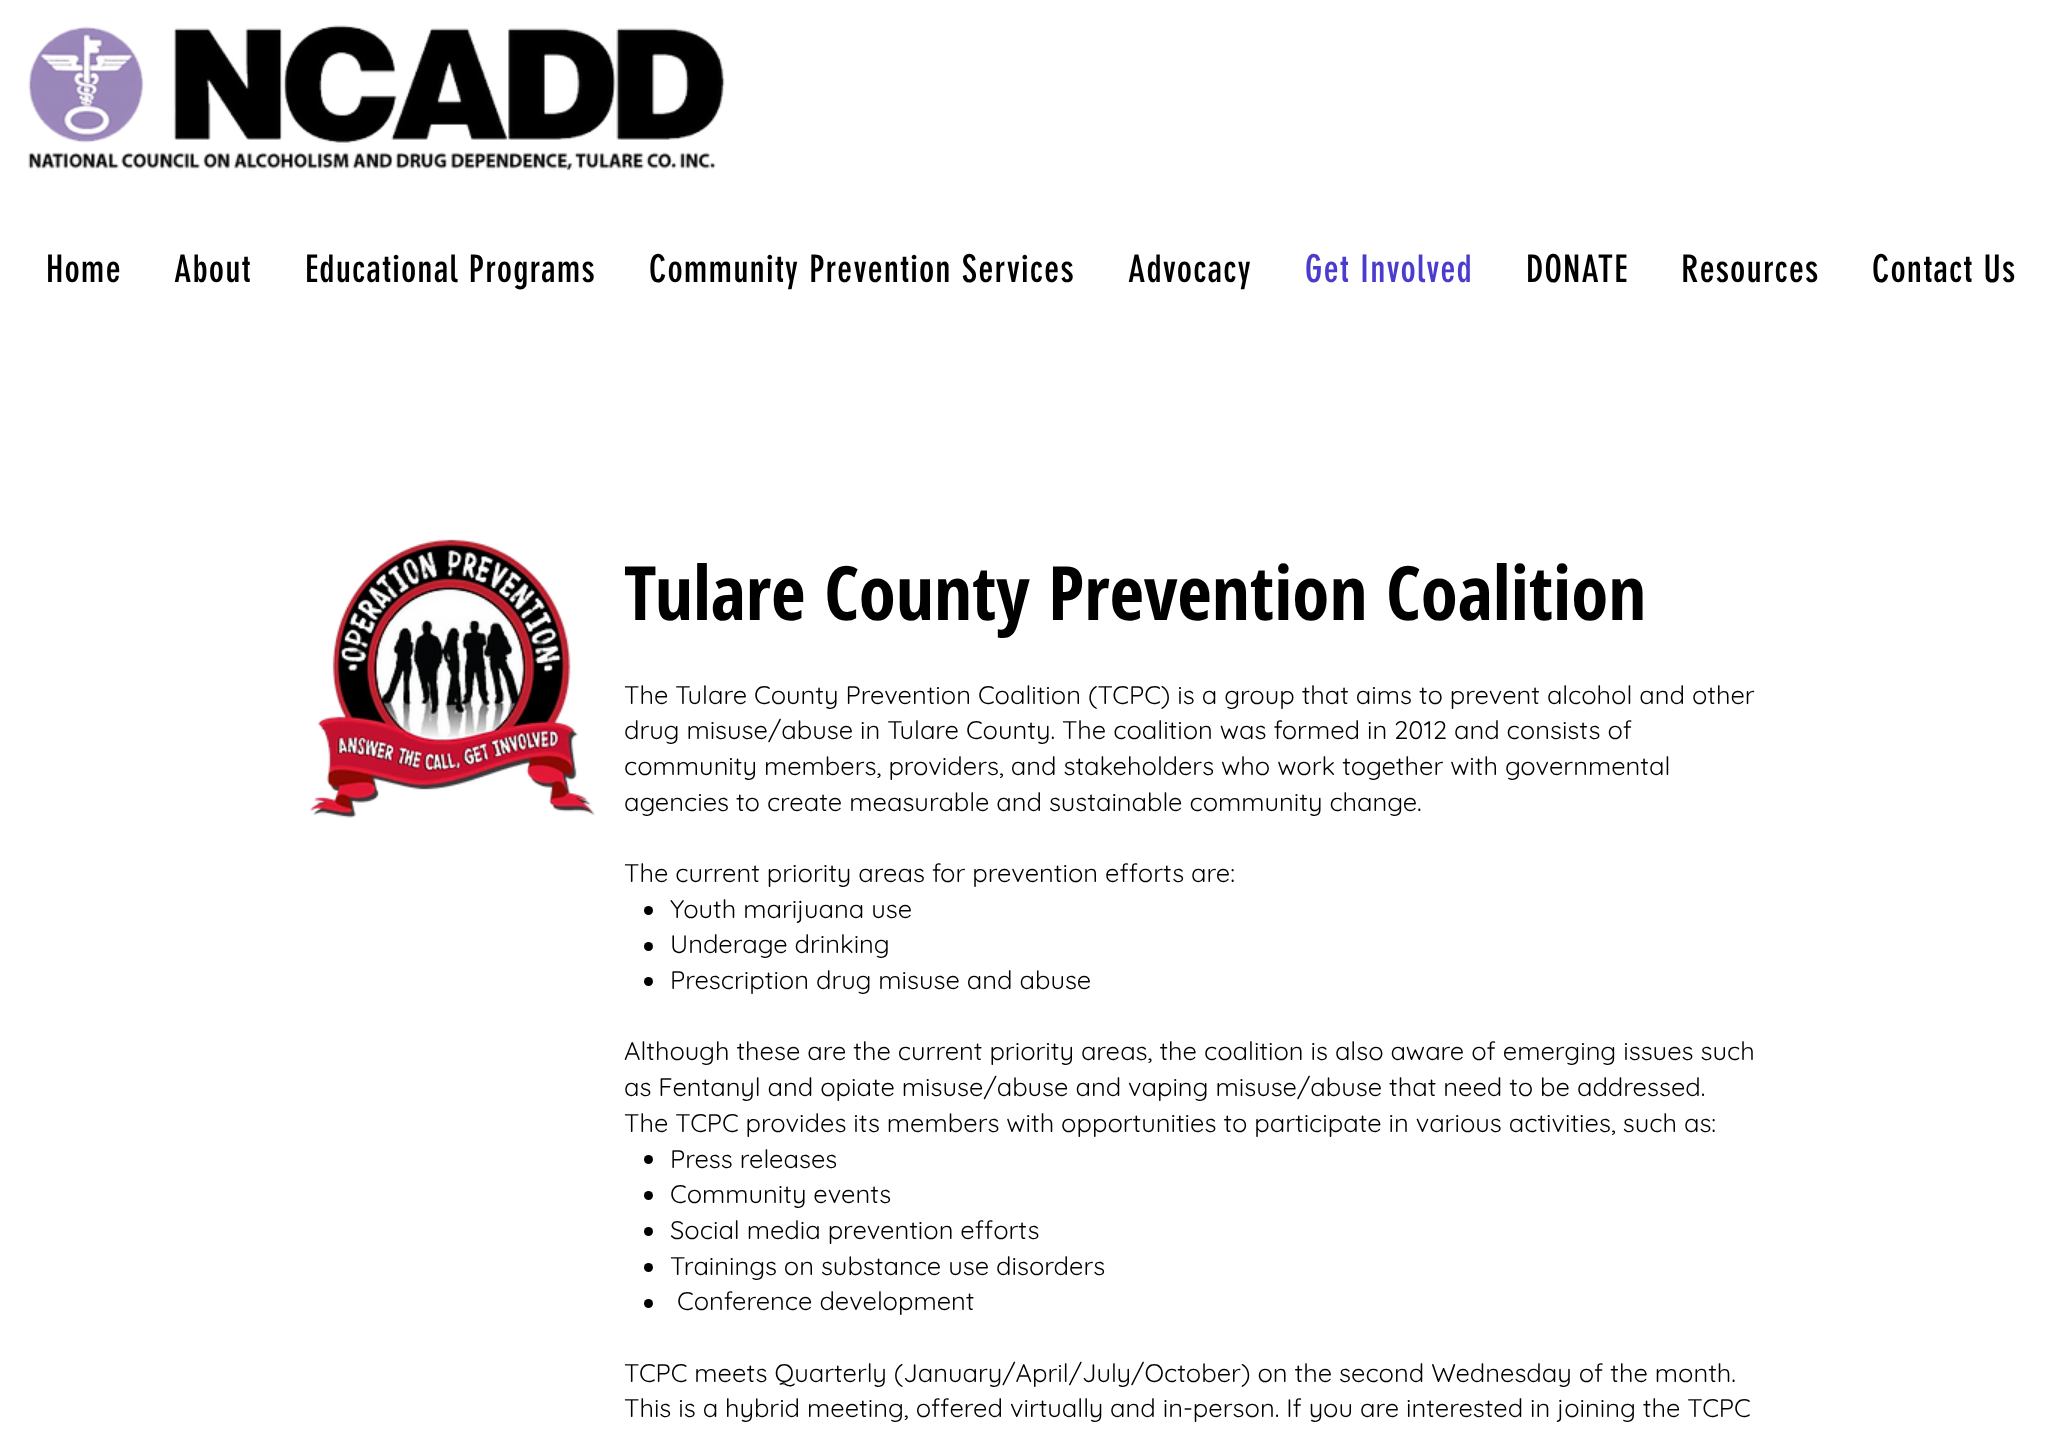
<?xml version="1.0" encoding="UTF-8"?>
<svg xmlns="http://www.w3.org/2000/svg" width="2070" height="1446">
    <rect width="100%" height="100%" fill="#FFFFFF"/>
    <image x="28" y="25" width="697" height="146" href="img_01.png"/>
    <text x="46" y="282" font-family="'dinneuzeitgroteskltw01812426'" font-size="37.5" letter-spacing="1.1" fill="#000000">Home</text>
    <text x="174" y="282" font-family="'dinneuzeitgroteskltw01812426'" font-size="37.5" letter-spacing="1.1" fill="#000000">About</text>
    <text x="305" y="282" font-family="'dinneuzeitgroteskltw01812426'" font-size="37.5" letter-spacing="1.1" fill="#000000">Educational Programs</text>
    <text x="649" y="282" font-family="'dinneuzeitgroteskltw01812426'" font-size="37.5" letter-spacing="1.1" fill="#000000">Community Prevention Services</text>
    <text x="1128" y="282" font-family="'dinneuzeitgroteskltw01812426'" font-size="37.5" letter-spacing="1.1" fill="#000000">Advocacy</text>
    <text x="1305" y="282" font-family="'dinneuzeitgroteskltw01812426'" font-size="37.5" letter-spacing="1.1" fill="#4B3CCD">Get Involved</text>
    <text x="1526" y="282" font-family="'dinneuzeitgroteskltw01812426'" font-size="37.5" letter-spacing="1.1" fill="#000000">DONATE</text>
    <text x="1681" y="282" font-family="'dinneuzeitgroteskltw01812426'" font-size="37.5" letter-spacing="1.1" fill="#000000">Resources</text>
    <text x="1872" y="282" font-family="'dinneuzeitgroteskltw01812426'" font-size="37.5" letter-spacing="1.1" fill="#000000">Contact Us</text>
    <image x="310" y="539" width="285" height="279" href="img_02.png"/>
    <text x="624" y="620" font-family="Open Sans Condensed" font-size="75" font-weight="700" fill="#000000">Tulare County Prevention Coalition</text>
    <text font-family="Quicksand" font-size="25.5" fill="#000000">
        <tspan x="624" y="704">The Tulare County Prevention Coalition (TCPC) is a group that aims to prevent alcohol and other</tspan>
        <tspan x="624" y="739">drug misuse/abuse in Tulare County. The coalition was formed in 2012 and consists of</tspan>
        <tspan x="624" y="775">community members, providers, and stakeholders who work together with governmental</tspan>
        <tspan x="624" y="811">agencies to create measurable and sustainable community change.</tspan>
    </text>
    <text x="624" y="882" font-family="Quicksand" font-size="25.5" fill="#000000">The current priority areas for prevention efforts are:</text>
    <circle cx="648.5" cy="910.5" r="4.5" fill="#000000"/>
    <text x="670" y="918" font-family="Quicksand" font-size="25.5" fill="#000000">Youth marijuana use</text>
    <circle cx="648.5" cy="946.5" r="4.5" fill="#000000"/>
    <text x="670" y="953" font-family="Quicksand" font-size="25.5" fill="#000000">Underage drinking</text>
    <circle cx="648.5" cy="981.5" r="4.5" fill="#000000"/>
    <text x="670" y="989" font-family="Quicksand" font-size="25.5" fill="#000000">Prescription drug misuse and abuse</text>
    <text font-family="Quicksand" font-size="25.5" fill="#000000">
        <tspan x="624" y="1060">Although these are the current priority areas, the coalition is also aware of emerging issues such</tspan>
        <tspan x="624" y="1096">as Fentanyl and opiate misuse/abuse and vaping misuse/abuse that need to be addressed.</tspan>
        <tspan x="624" y="1132">The TCPC provides its members with opportunities to participate in various activities, such as:</tspan>
    </text>
    <circle cx="648.5" cy="1159.5" r="4.5" fill="#000000"/>
    <text x="670" y="1168" font-family="Quicksand" font-size="25.5" fill="#000000">Press releases</text>
    <circle cx="648.5" cy="1195.5" r="4.5" fill="#000000"/>
    <text x="670" y="1203" font-family="Quicksand" font-size="25.5" fill="#000000">Community events</text>
    <circle cx="648.5" cy="1231.5" r="4.5" fill="#000000"/>
    <text x="670" y="1239" font-family="Quicksand" font-size="25.5" fill="#000000">Social media prevention efforts</text>
    <circle cx="648.5" cy="1267.5" r="4.5" fill="#000000"/>
    <text x="670" y="1275" font-family="Quicksand" font-size="25.5" fill="#000000">Trainings on substance use disorders</text>
    <circle cx="648.5" cy="1303.5" r="4.5" fill="#000000"/>
    <text x="677" y="1310" font-family="Quicksand" font-size="25.5" fill="#000000">Conference development</text>
    <text font-family="Quicksand" font-size="25.5" fill="#000000">
        <tspan x="624" y="1382">TCPC meets Quarterly (January/April/July/October) on the second Wednesday of the month.</tspan>
        <tspan x="624" y="1417">This is a hybrid meeting, offered virtually and in-person. If you are interested in joining the TCPC</tspan>
    </text>
</svg>
